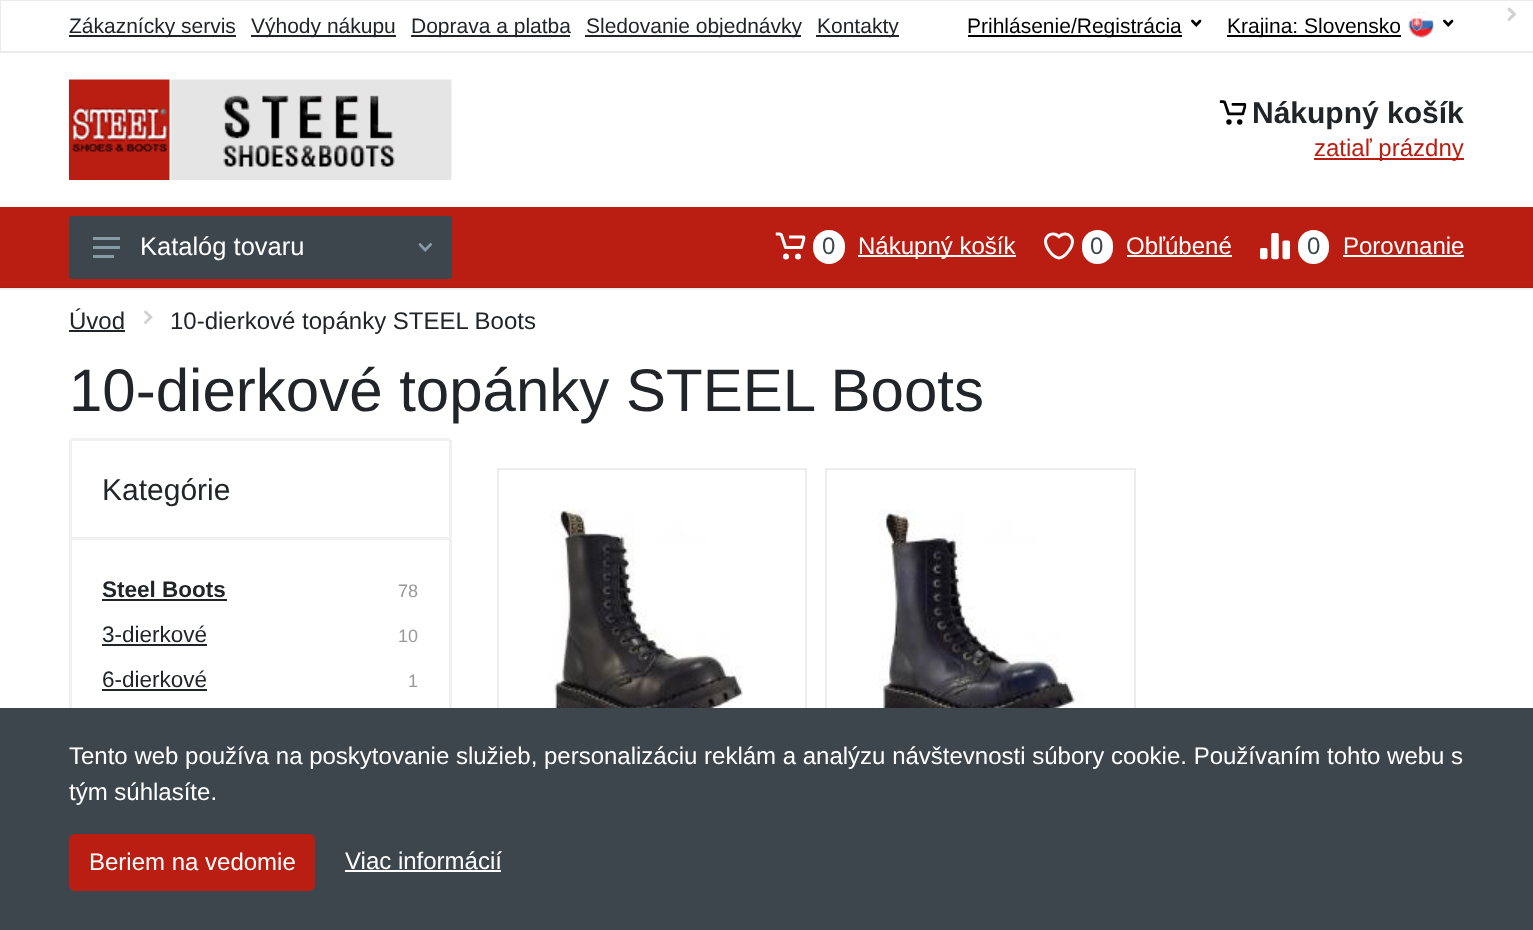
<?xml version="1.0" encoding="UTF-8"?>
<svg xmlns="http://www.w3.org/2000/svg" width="1533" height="930">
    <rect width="100%" height="100%" fill="#FFFFFF"/>
    <image x="1507" y="7" width="9" height="14" href="img_10.png"/>
    <image x="1507" y="7" width="9" height="14" href="img_11.png"/>
    <rect x="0" y="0" width="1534" height="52" fill="none" stroke="#EBEBEB" stroke-width="2"/>
    <rect x="69" y="35" width="167" height="2" fill="#212529"/>
    <text x="69" y="33" font-family="Liberation Sans" font-size="21" fill="#212529">Zákaznícky servis</text>
    <rect x="251" y="35" width="145" height="2" fill="#212529"/>
    <text x="251" y="33" font-family="Liberation Sans" font-size="21" fill="#212529">Výhody nákupu</text>
    <rect x="411" y="35" width="159" height="2" fill="#212529"/>
    <text x="411" y="33" font-family="Liberation Sans" font-size="21" fill="#212529">Doprava a platba</text>
    <rect x="585" y="35" width="216" height="2" fill="#212529"/>
    <text x="586" y="33" font-family="Liberation Sans" font-size="21" fill="#212529">Sledovanie objednávky</text>
    <rect x="816" y="35" width="83" height="2" fill="#212529"/>
    <text x="817" y="33" font-family="Liberation Sans" font-size="21" fill="#212529">Kontakty</text>
    <rect x="968" y="35" width="214" height="2" fill="#000000"/>
    <text x="967" y="33" font-family="Liberation Sans" font-size="21" fill="#000000">Prihlásenie/Registrácia</text>
    <image x="1191" y="19" width="11" height="8" href="img_01.png"/>
    <rect x="1227" y="35" width="174" height="2" fill="#000000"/>
    <text x="1227" y="33" font-family="Liberation Sans" font-size="21" fill="#000000">Krajina: Slovensko</text>
    <image x="1408" y="12" width="26" height="26" href="img_02.png"/>
    <image x="1443" y="19" width="11" height="8" href="img_01.png"/>
    <image x="69" y="79" width="383" height="101" href="img_03.png"/>
    <image x="1219" y="100" width="28" height="25" href="img_04.png"/>
    <text x="1252" y="123" font-family="Liberation Sans" font-size="30" font-weight="700" fill="#212529">Nákupný košík</text>
    <rect x="1314" y="158" width="150" height="2" fill="#BA1E12"/>
    <text x="1314" y="156" font-family="Liberation Sans" font-size="24" fill="#BA1E12">zatiaľ prázdny</text>
    <rect x="0" y="289" width="1533" height="1" fill="#F5F5F5"/>
    <rect x="0" y="288" width="1533" height="1" fill="#EBEBEB"/>
    <rect x="0" y="207" width="1533" height="80" fill="#BA1E12"/>
    <rect x="0" y="287" width="1533" height="1" fill="#B31D11"/>
    <rect x="69" y="216" width="383" height="63" rx="3" fill="#3D464D"/>
    <image x="93" y="237" width="27" height="21" href="img_05.png"/>
    <text x="140" y="255" font-family="Liberation Sans" font-size="25.5" fill="#FFFFFF">Katalóg tovaru</text>
    <image x="418" y="243" width="14" height="9" href="img_06.png"/>
    <image x="775" y="232" width="31" height="28" href="img_07.png"/>
    <rect x="813" y="230" width="32" height="34" rx="16" fill="#FFFFFF"/>
    <text x="822" y="254" font-family="Liberation Sans" font-size="24" fill="#3D464D">0</text>
    <rect x="858" y="255" width="158" height="2" fill="#FFFFFF"/>
    <text x="858" y="254" font-family="Liberation Sans" font-size="24" fill="#FFFFFF">Nákupný košík</text>
    <image x="1044" y="232" width="30" height="28" href="img_08.png"/>
    <rect x="1082" y="230" width="31" height="34" rx="15.5" fill="#FFFFFF"/>
    <text x="1090" y="254" font-family="Liberation Sans" font-size="24" fill="#3D464D">0</text>
    <text x="1126" y="254" font-family="Liberation Sans" font-size="24" fill="#FFFFFF">Obľúbené</text>
    <rect x="1127" y="255" width="105" height="2" fill="#FFFFFF"/>
    <image x="1260" y="233" width="30" height="27" href="img_09.png"/>
    <rect x="1298" y="230" width="31" height="34" rx="15.5" fill="#FFFFFF"/>
    <text x="1307" y="254" font-family="Liberation Sans" font-size="24" fill="#3D464D">0</text>
    <text x="1343" y="254" font-family="Liberation Sans" font-size="24" fill="#FFFFFF">Porovnanie</text>
    <rect x="1343" y="255" width="121" height="2" fill="#FFFFFF"/>
    <text x="69" y="329" font-family="Liberation Sans" font-size="24" fill="#212529">Úvod</text>
    <rect x="69" y="330" width="56" height="2" fill="#212529"/>
    <image x="144" y="310" width="9" height="14" href="img_12.png"/>
    <text x="170" y="329" font-family="Liberation Sans" font-size="24" fill="#212529">10-dierkové topánky STEEL Boots</text>
    <text x="69" y="411" font-family="Liberation Sans" font-size="60" fill="#212529">10-dierkové topánky STEEL Boots</text>
    <rect x="71" y="438" width="379" height="3" fill="#F0F0F0"/>
    <rect x="449" y="440" width="3" height="268" fill="#F0F0F0"/>
    <rect x="69" y="440" width="3" height="268" fill="#F0F0F0"/>
    <text x="102" y="500" font-family="Liberation Sans" font-size="30" fill="#212529">Kategórie</text>
    <rect x="72" y="537" width="377" height="3" fill="#F0F0F0"/>
    <text x="102" y="597" font-family="Liberation Sans" font-size="22.5" font-weight="700" fill="#212529">Steel Boots</text>
    <rect x="102" y="599" width="125" height="2" fill="#212529"/>
    <text x="398" y="597" font-family="Liberation Sans" font-size="18" fill="#999999">78</text>
    <text x="102" y="642" font-family="Liberation Sans" font-size="22.5" fill="#212529">3-dierkové</text>
    <rect x="102" y="644" width="105" height="2" fill="#212529"/>
    <text x="398" y="642" font-family="Liberation Sans" font-size="18" fill="#999999">10</text>
    <text x="102" y="687" font-family="Liberation Sans" font-size="22.5" fill="#212529">6-dierkové</text>
    <rect x="102" y="689" width="105" height="2" fill="#212529"/>
    <text x="408" y="687" font-family="Liberation Sans" font-size="18" fill="#999999">1</text>
    <rect x="498" y="469" width="308" height="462" fill="none" stroke="#EDEDED" stroke-width="2"/>
    <image x="551" y="510" width="192" height="198" href="img_13.png"/>
    <rect x="826" y="469" width="309" height="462" fill="none" stroke="#EDEDED" stroke-width="2"/>
    <image x="879" y="510" width="204" height="198" href="img_14.png"/>
    <rect x="0" y="708" width="1533" height="222" fill="#3D464D"/>
    <text font-family="Liberation Sans" font-size="24" fill="#FFFFFF">
        <tspan x="69" y="764">Tento web používa na poskytovanie služieb, personalizáciu reklám a analýzu návštevnosti súbory cookie. Používaním tohto webu s</tspan>
        <tspan x="69" y="800">tým súhlasíte.</tspan>
    </text>
    <rect x="70" y="835" width="244" height="55" rx="5" fill="#BA1E12" stroke="#BA1E12" stroke-width="2"/>
    <text x="89" y="870" font-family="Liberation Sans" font-size="24" fill="#FFFFFF">Beriem na vedomie</text>
    <text x="345" y="869" font-family="Liberation Sans" font-size="24" fill="#FFFFFF">Viac informácií</text>
    <rect x="345" y="870" width="156" height="2" fill="#FFFFFF"/>
</svg>
